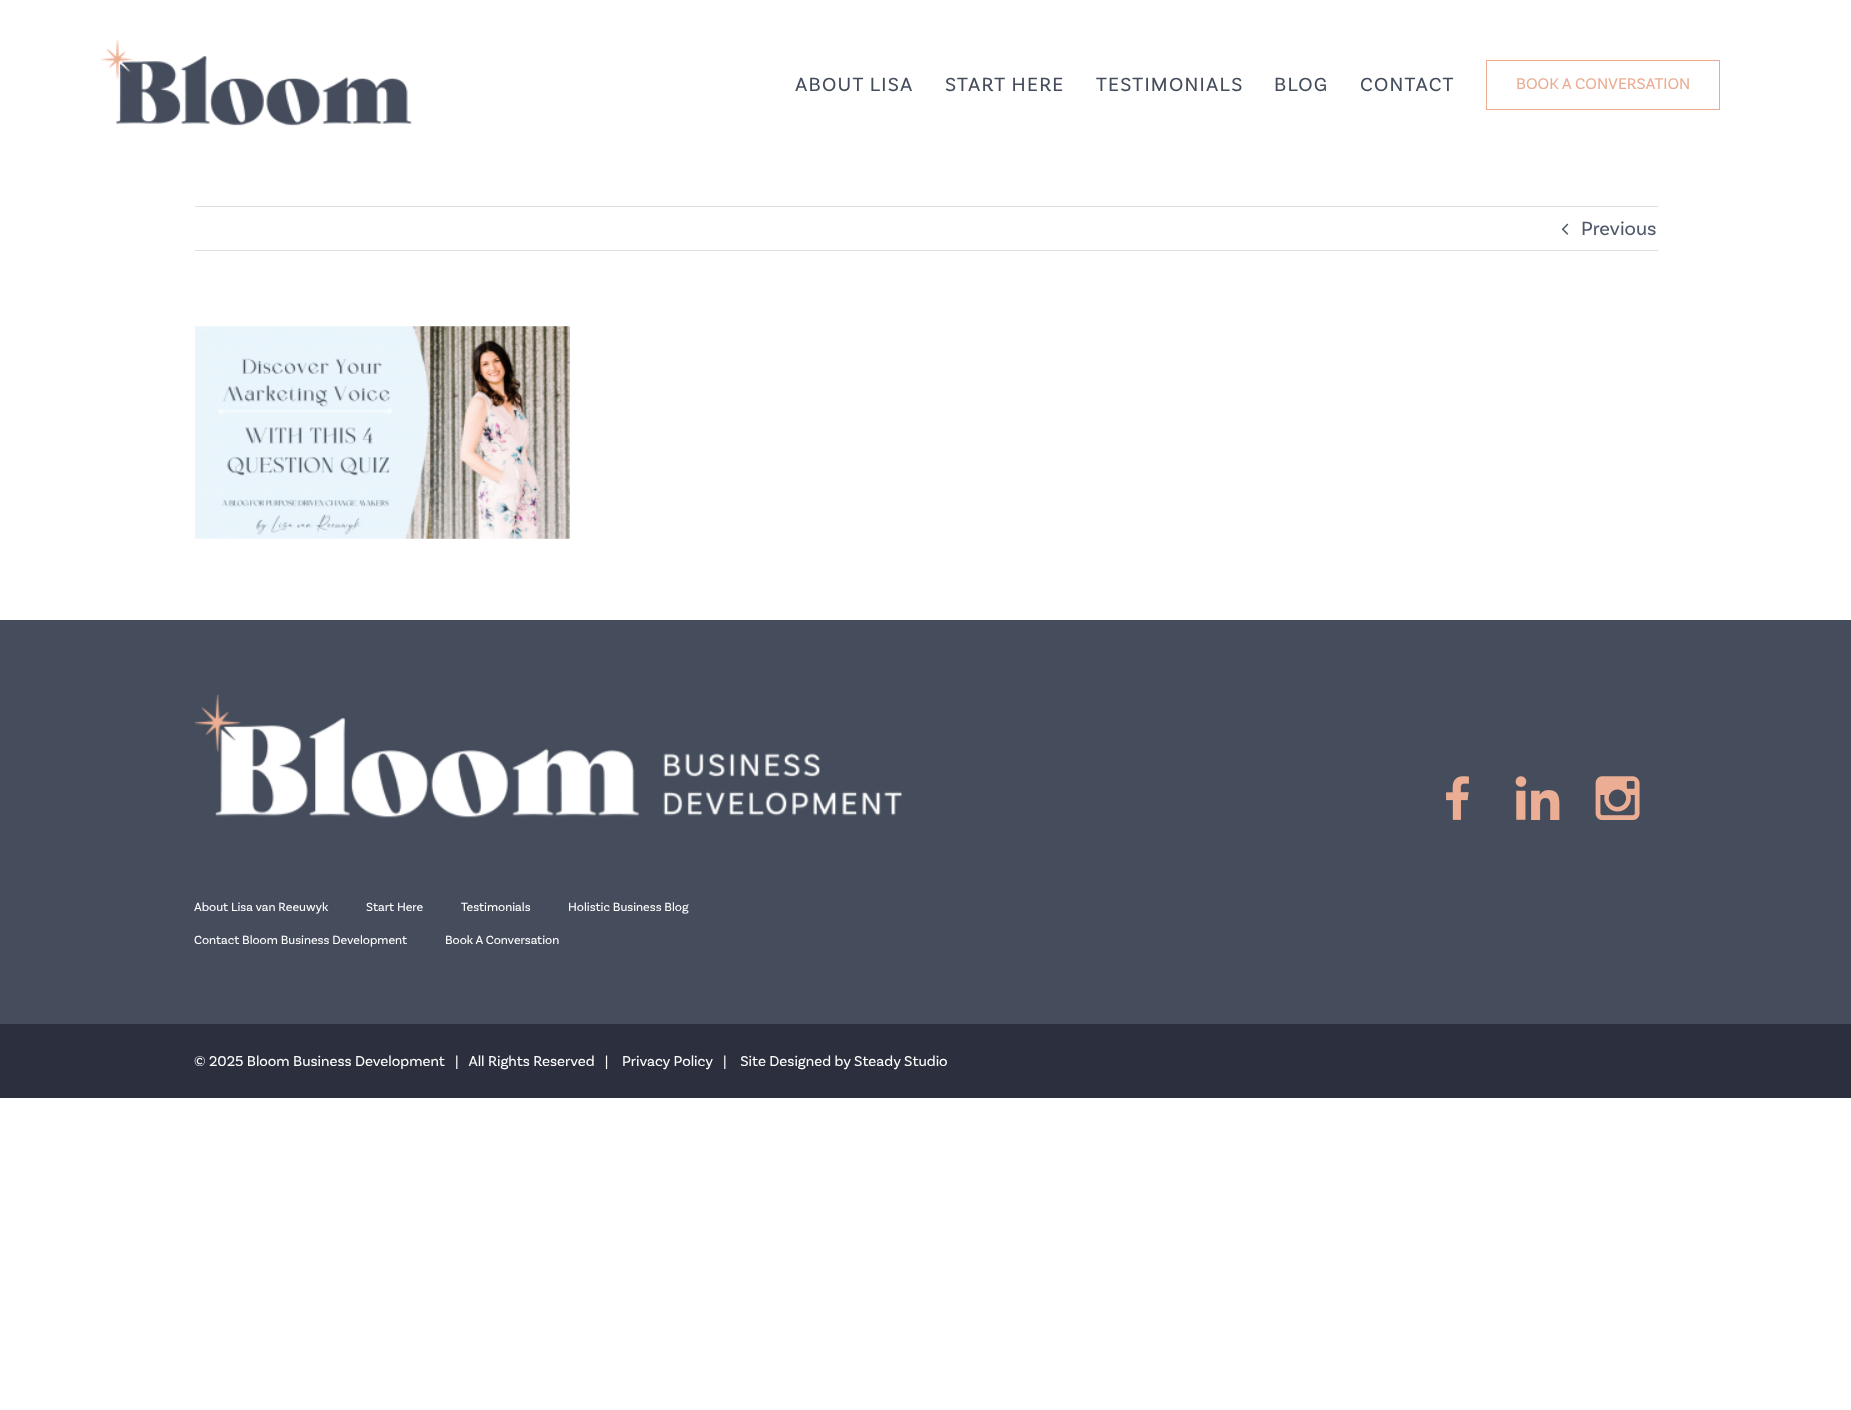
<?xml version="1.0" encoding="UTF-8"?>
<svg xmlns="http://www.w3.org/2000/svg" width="1851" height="1410">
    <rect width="100%" height="100%" fill="#FFFFFF"/>
    <image x="101" y="40" width="311" height="86" href="img_01.png"/>
    <text x="795" y="91" font-family="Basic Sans" font-size="20" letter-spacing="1.25" fill="#454D5C">ABOUT LISA</text>
    <text x="945" y="91" font-family="Basic Sans" font-size="20" letter-spacing="1.25" fill="#454D5C">START HERE</text>
    <text x="1096" y="91" font-family="Basic Sans" font-size="20" letter-spacing="1.25" fill="#454D5C">TESTIMONIALS</text>
    <text x="1274" y="91" font-family="Basic Sans" font-size="20" letter-spacing="1.25" fill="#454D5C">BLOG</text>
    <text x="1360" y="91" font-family="Basic Sans" font-size="20" letter-spacing="1.25" fill="#454D5C">CONTACT</text>
    <rect x="1486.5" y="60.5" width="233" height="49" fill="none" stroke="#EAAD94"/>
    <text x="1516" y="89" font-family="Basic Sans" font-size="16.25" fill="#EAAD94">BOOK A CONVERSATION</text>
    <rect x="195" y="206" width="1463" height="1" fill="#E0DEDE"/>
    <rect x="195" y="250" width="1463" height="1" fill="#E0DEDE"/>
    <image x="1561" y="223" width="8" height="12" href="img_02.png"/>
    <text x="1581" y="235" font-family="Basic Sans" font-size="20" fill="#50586B">Previous</text>
    <image x="195" y="326" width="375" height="213" href="img_03.png"/>
    <rect x="0" y="620" width="1851" height="404" fill="#454D5C"/>
    <image x="1446" y="776" width="23" height="44" href="img_04.png"/>
    <image x="1515" y="776" width="45" height="44" href="img_05.png"/>
    <image x="1595" y="776" width="45" height="44" href="img_06.png"/>
    <image x="195" y="694" width="708" height="124" href="img_07.png"/>
    <text x="194" y="911" font-family="Basic Sans" font-size="12.5" fill="#FFFFFF">About Lisa van Reeuwyk</text>
    <text x="366" y="911" font-family="Basic Sans" font-size="12.5" fill="#FFFFFF">Start Here</text>
    <text x="461" y="911" font-family="Basic Sans" font-size="12.5" fill="#FFFFFF">Testimonials</text>
    <text x="568" y="911" font-family="Basic Sans" font-size="12.5" fill="#FFFFFF">Holistic Business Blog</text>
    <text x="194" y="944" font-family="Basic Sans" font-size="12.5" fill="#FFFFFF">Contact Bloom Business Development</text>
    <text x="445" y="944" font-family="Basic Sans" font-size="12.5" fill="#FFFFFF">Book A Conversation</text>
    <rect x="0" y="1024" width="1851" height="74" fill="#2C2F3E"/>
    <text x="194" y="1066" font-family="Basic Sans" font-size="15" fill="#FFFFFF" xml:space="preserve">© 2025 Bloom Business Development   |   All Rights Reserved   |</text>
    <text x="622" y="1066" font-family="Basic Sans" font-size="15" fill="#FFFFFF">Privacy Policy</text>
    <text x="723" y="1066" font-family="Basic Sans" font-size="15" fill="#FFFFFF" xml:space="preserve">|    Site Designed by Steady Studio</text>
</svg>
